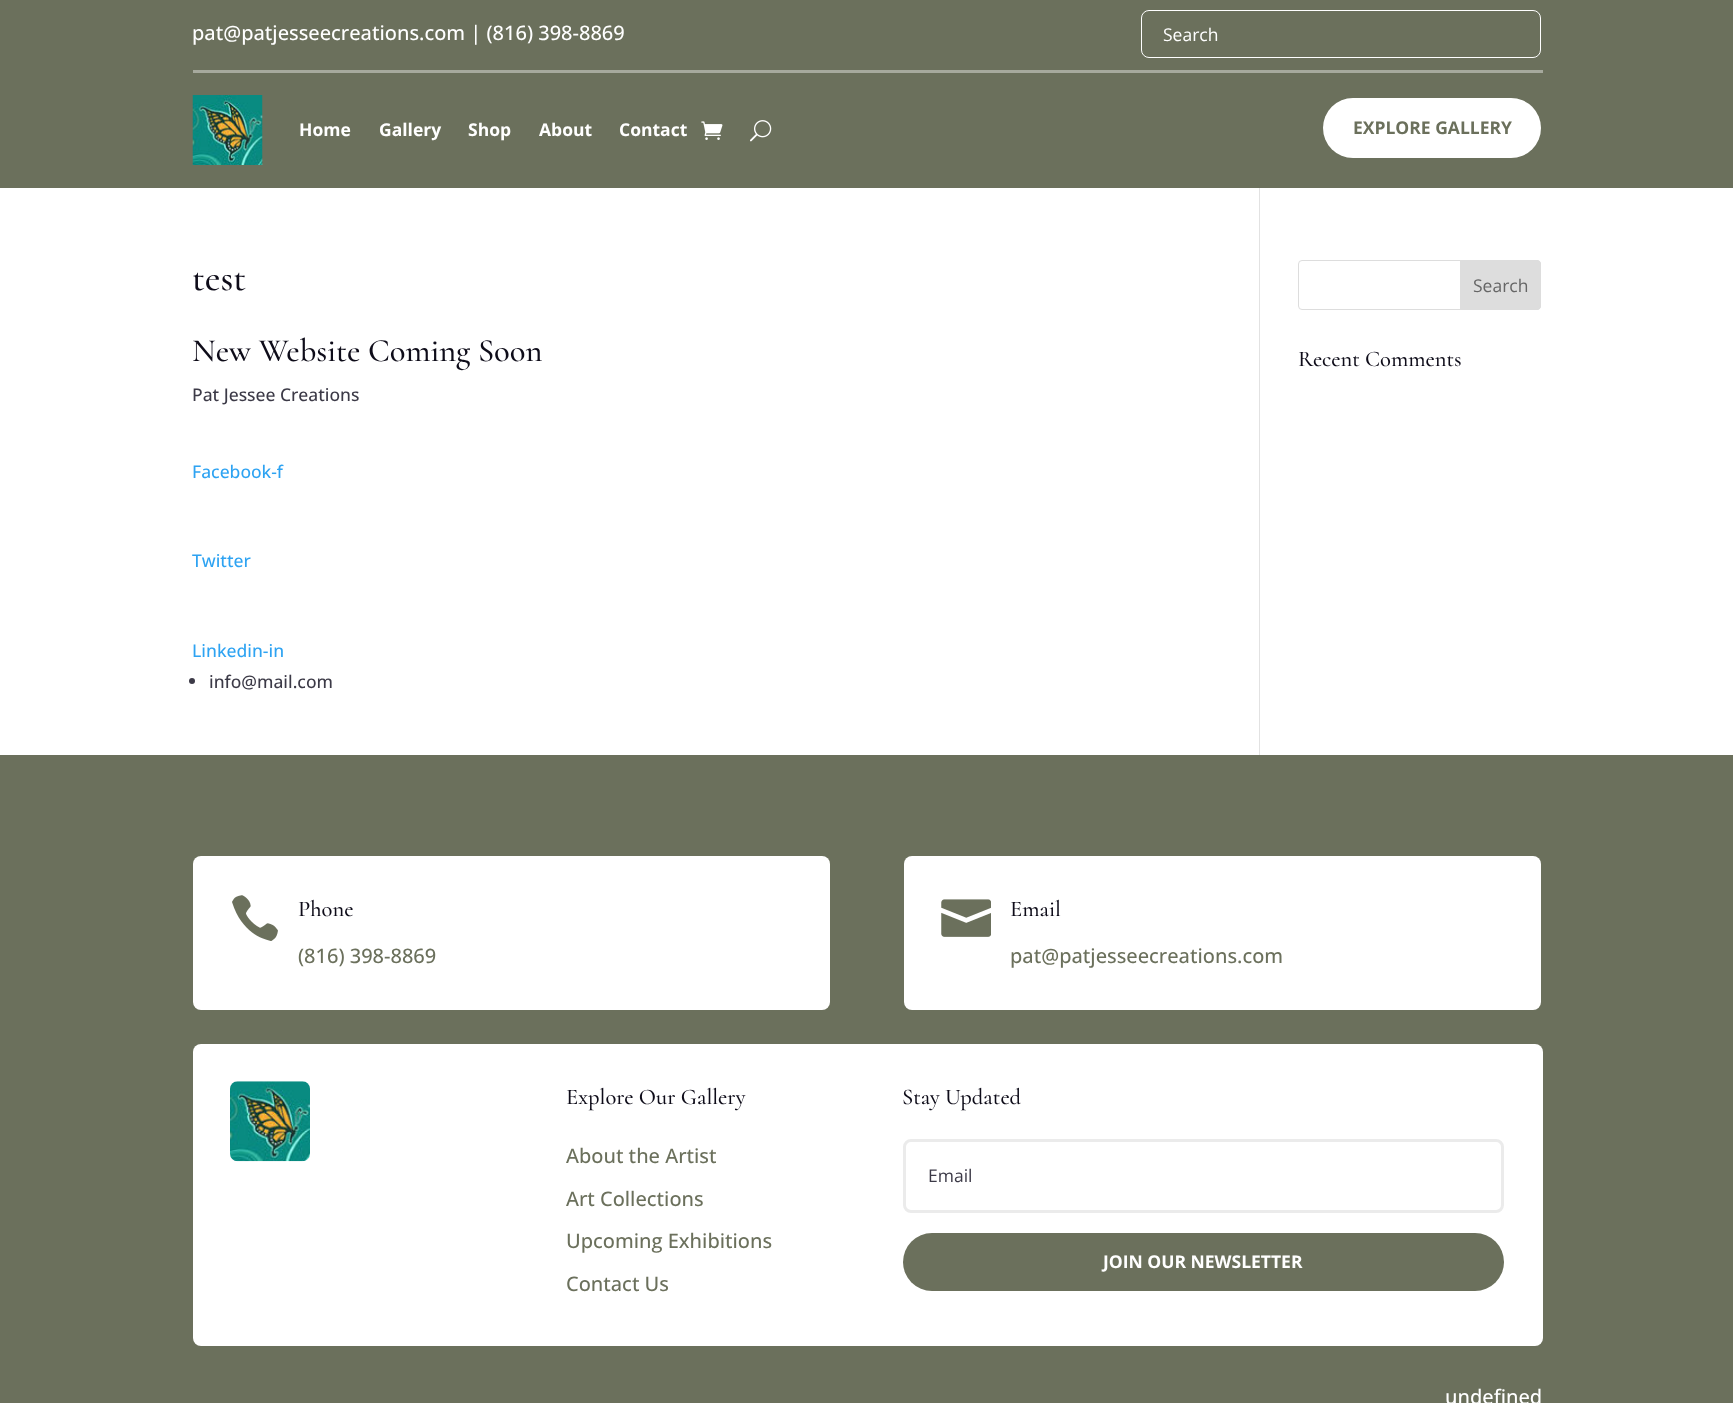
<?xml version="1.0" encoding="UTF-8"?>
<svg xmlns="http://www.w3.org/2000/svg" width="1733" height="1403">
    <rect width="100%" height="100%" fill="#FFFFFF"/>
    <rect x="0" y="0" width="1733" height="188" fill="#6B705C"/>
    <rect x="193" y="70" width="1350" height="3" fill="#A6A99D"/>
    <text x="192" y="40" font-family="Open Sans" font-size="20" font-weight="500" fill="#FFFFFF">pat@patjesseecreations.com | (816) 398-8869</text>
    <rect x="1141.5" y="10.5" width="399" height="47" rx="7.5" fill="none" stroke="#FFFFFF"/>
    <text x="1163" y="41" font-family="Open Sans" font-size="17.5" fill="#FFFFFF">Search</text>
    <image x="192" y="95" width="71" height="70" href="img_01.png"/>
    <text x="299" y="136" font-family="Open Sans" font-size="17.5" font-weight="700" fill="#FFFFFF">Home</text>
    <text x="379" y="136" font-family="Open Sans" font-size="17.5" font-weight="700" fill="#FFFFFF">Gallery</text>
    <text x="468" y="136" font-family="Open Sans" font-size="17.5" font-weight="700" fill="#FFFFFF">Shop</text>
    <text x="539" y="136" font-family="Open Sans" font-size="17.5" font-weight="700" fill="#FFFFFF">About</text>
    <text x="619" y="136" font-family="Open Sans" font-size="17.5" font-weight="700" fill="#FFFFFF">Contact</text>
    <image x="701" y="121" width="22" height="19" href="img_02.png"/>
    <image x="750" y="120" width="22" height="22" href="img_03.png"/>
    <rect x="1323" y="98" width="218" height="60" rx="30" fill="#FFFFFF"/>
    <text x="1353" y="134" font-family="Open Sans" font-size="17.5" font-weight="700" fill="#6B705C">EXPLORE GALLERY</text>
    <rect x="1259" y="188" width="1" height="567" fill="#E2E2E2"/>
    <text x="192" y="290" font-family="Cormorant" font-size="38" font-weight="500" fill="#0E0C19">test</text>
    <text x="192" y="361" font-family="Cormorant" font-size="32.5" font-weight="500" fill="#0E0C19">New Website Coming Soon</text>
    <text x="192" y="401" font-family="Open Sans" font-size="17.5" font-weight="500" fill="#3C3A47">Pat Jessee Creations</text>
    <text x="192" y="478" font-family="Open Sans" font-size="17.5" font-weight="500" fill="#2EA3F2">Facebook-f</text>
    <text x="192" y="567" font-family="Open Sans" font-size="17.5" font-weight="500" fill="#2EA3F2">Twitter</text>
    <text x="192" y="657" font-family="Open Sans" font-size="17.5" font-weight="500" fill="#2EA3F2">Linkedin-in</text>
    <circle cx="192" cy="681" r="3" fill="#3C3A47"/>
    <text x="209" y="688" font-family="Open Sans" font-size="17.5" font-weight="500" fill="#3C3A47">info@mail.com</text>
    <rect x="1298.5" y="260.5" width="242" height="49" rx="3.5" fill="none" stroke="#DDDDDD"/>
    <path d="M 1460.5 260.5 H 1537 C 1539 260.5 1540.5 262 1540.5 264 V 306 C 1540.5 308 1539 309.5 1537 309.5 H 1460.5 Z" fill="#DDDDDD" stroke="#DDDDDD"/>
    <text x="1473" y="292" font-family="Open Sans" font-size="17.5" fill="#666666">Search</text>
    <text x="1298" y="366" font-family="Cormorant" font-size="22.5" font-weight="500" fill="#0E0C19">Recent Comments</text>
    <rect x="0" y="755" width="1733" height="648" fill="#6B705C"/>
    <rect x="193" y="856" width="637" height="154" rx="8" fill="#FFFFFF"/>
    <image x="232" y="895" width="46" height="46" href="img_04.png"/>
    <text x="298" y="916" font-family="Cormorant" font-size="22.5" font-weight="500" fill="#0E0C19">Phone</text>
    <text x="298" y="963" font-family="Open Sans" font-size="20" font-weight="500" fill="#6B705C">(816) 398-8869</text>
    <rect x="904" y="856" width="637" height="154" rx="8" fill="#FFFFFF"/>
    <image x="941" y="899" width="50" height="38" href="img_05.png"/>
    <text x="1010" y="916" font-family="Cormorant" font-size="22.5" font-weight="500" fill="#0E0C19">Email</text>
    <text x="1010" y="963" font-family="Open Sans" font-size="20" font-weight="500" fill="#6B705C">pat@patjesseecreations.com</text>
    <rect x="193" y="1044" width="1350" height="302" rx="8" fill="#FFFFFF"/>
    <image x="230" y="1081" width="80" height="81" href="img_06.png"/>
    <text x="566" y="1104" font-family="Cormorant" font-size="22.5" font-weight="500" fill="#0E0C19">Explore Our Gallery</text>
    <text x="566" y="1163" font-family="Open Sans" font-size="20" font-weight="500" fill="#6B705C">About the Artist</text>
    <text x="566" y="1206" font-family="Open Sans" font-size="20" font-weight="500" fill="#6B705C">Art Collections</text>
    <text x="566" y="1248" font-family="Open Sans" font-size="20" font-weight="500" fill="#6B705C">Upcoming Exhibitions</text>
    <text x="566" y="1291" font-family="Open Sans" font-size="20" font-weight="500" fill="#6B705C">Contact Us</text>
    <text x="902" y="1104" font-family="Cormorant" font-size="22.5" font-weight="500" fill="#0E0C19">Stay Updated</text>
    <rect x="904.5" y="1140.5" width="598" height="71" rx="6.5" fill="none" stroke="#EBEBEB" stroke-width="3"/>
    <text x="928" y="1182" font-family="Open Sans" font-size="17.5" fill="#3C3A47">Email</text>
    <rect x="903" y="1233" width="601" height="58" rx="29" fill="#6B705C"/>
    <text x="1103" y="1268" font-family="Open Sans" font-size="17.5" font-weight="700" fill="#FFFFFF">JOIN OUR NEWSLETTER</text>
    <text x="1445" y="1404" font-family="Open Sans" font-size="20" font-weight="500" fill="#FFFFFF">undefined</text>
</svg>
